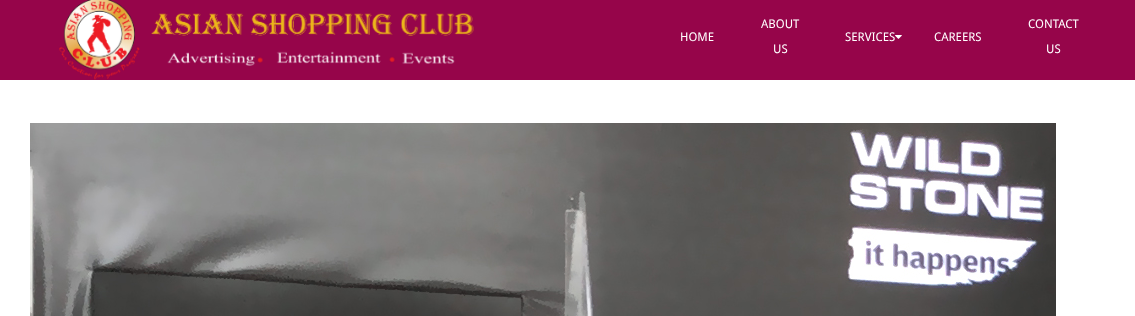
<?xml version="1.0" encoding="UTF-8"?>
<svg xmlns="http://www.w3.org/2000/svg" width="1135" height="316">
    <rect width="100%" height="100%" fill="#FFFFFF"/>
    <rect x="0" y="0" width="1135" height="80" fill="#96054A"/>
    <image x="59" y="0" width="415" height="80" href="img_01.png"/>
    <text x="680" y="41" font-family="Droid Sans" font-size="12" fill="#FFFFFF">HOME</text>
    <text x="761" y="28" font-family="Droid Sans" font-size="12" fill="#FFFFFF">ABOUT</text>
    <text x="773" y="53" font-family="Droid Sans" font-size="12" fill="#FFFFFF">US</text>
    <text x="845" y="41" font-family="Droid Sans" font-size="12" fill="#FFFFFF">SERVICES</text>
    <image x="895" y="35" width="7" height="4" href="img_02.png"/>
    <text x="934" y="41" font-family="Droid Sans" font-size="12" fill="#FFFFFF">CAREERS</text>
    <text x="1028" y="28" font-family="Droid Sans" font-size="12" fill="#FFFFFF">CONTACT</text>
    <text x="1046" y="53" font-family="Droid Sans" font-size="12" fill="#FFFFFF">US</text>
    <image x="30" y="123" width="1026" height="193" href="img_03.png"/>
</svg>
